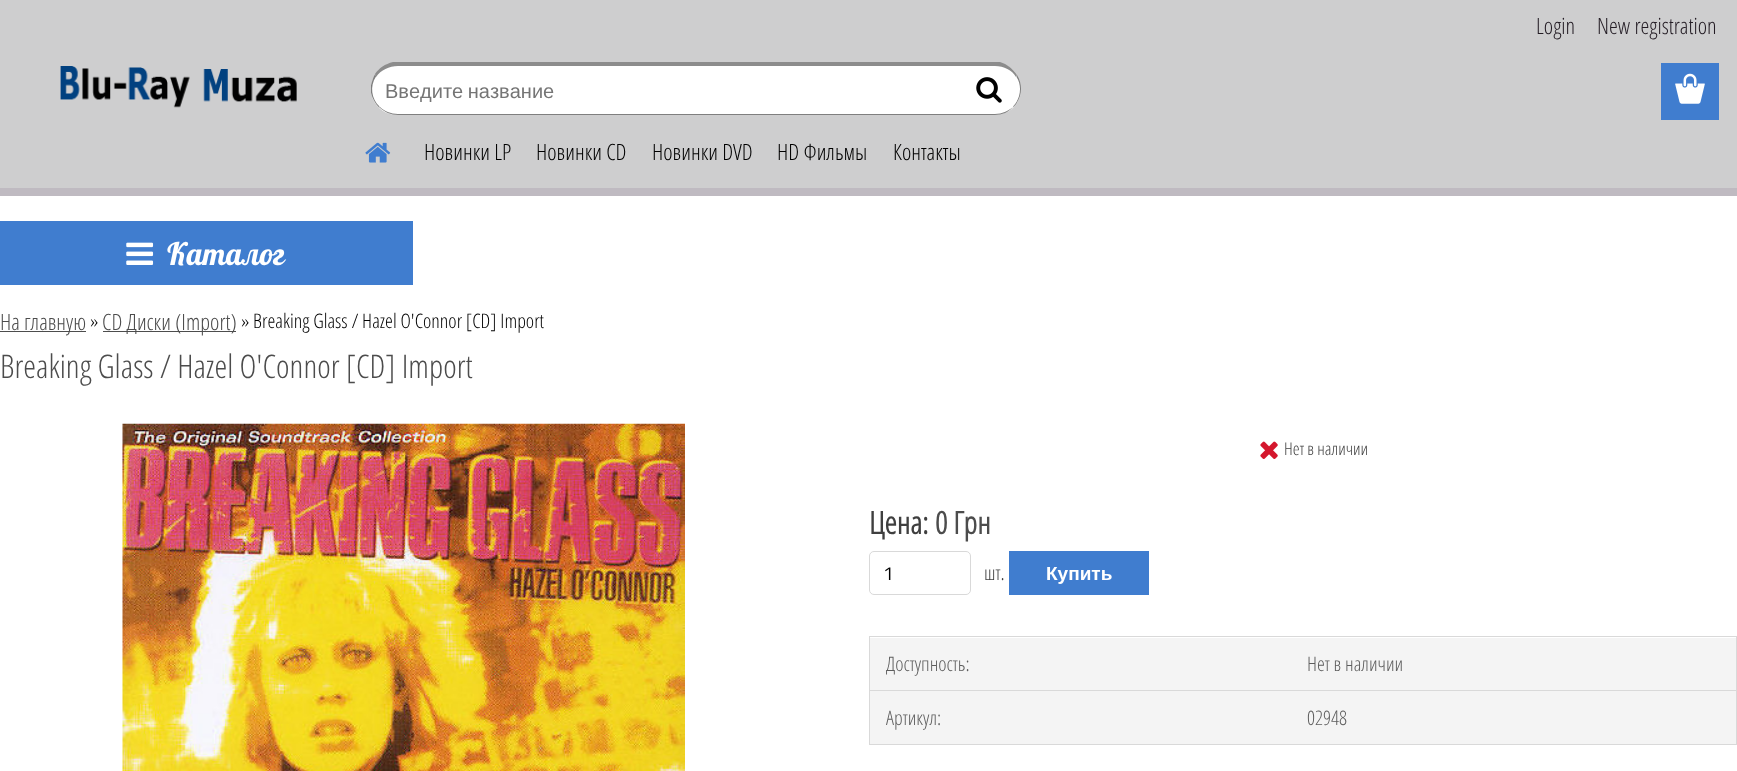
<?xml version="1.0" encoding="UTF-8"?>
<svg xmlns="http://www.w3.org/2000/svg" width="1737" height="771">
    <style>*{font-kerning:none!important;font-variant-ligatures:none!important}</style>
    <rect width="100%" height="100%" fill="#FFFFFF"/>
    <rect x="0" y="0" width="1737" height="188" fill="#CECECF"/>
    <text x="1536" y="34" font-family="Open Sans Condensed" font-size="22.5" font-weight="300" fill="#231C24">Login</text>
    <text x="1597" y="34" font-family="Open Sans Condensed" font-size="22.5" font-weight="300" fill="#231C24">New registration</text>
    <rect x="1661" y="63" width="58" height="57" fill="#407DCF"/>
    <image x="1675" y="73" width="30" height="31" href="img_01.png"/>
    <rect x="0" y="221" width="413" height="64" fill="#407DCF"/>
    <image x="126" y="242" width="28" height="23" href="img_02.png"/>
    <text x="167" y="265" font-family="Lobster" font-size="31" fill="#FFFFFF">Каталог</text>
    <rect x="0" y="331" width="86" height="1" fill="#4D4D4D"/>
    <text x="0" y="330" font-family="Open Sans Condensed" font-size="22.5" font-weight="300" fill="#4C4C4C">На главную</text>
    <text x="90" y="328" font-family="Open Sans Condensed" font-size="20" font-weight="300" fill="#000000">»</text>
    <rect x="103" y="331" width="133" height="1" fill="#4D4D4D"/>
    <text x="102" y="330" font-family="Open Sans Condensed" font-size="22.5" font-weight="300" fill="#4C4C4C">CD Диски (Import)</text>
    <text x="241" y="328" font-family="Open Sans Condensed" font-size="20" font-weight="300" fill="#000000">» Breaking Glass / Hazel O'Connor [CD] Import</text>
    <text x="0" y="378" font-family="Open Sans Condensed" font-size="32.5" font-weight="300" fill="#4C4C4C">Breaking Glass / Hazel O'Connor [CD] Import</text>
    <image x="122" y="423" width="563" height="348" href="img_03.png"/>
    <image x="1260" y="441" width="18" height="18" href="img_04.png"/>
    <text x="1284" y="455" font-family="Open Sans Condensed" font-size="17.5" font-weight="300" fill="#3F3F3F">Нет в наличии</text>
    <text x="869" y="534" font-family="Open Sans Condensed" font-size="31" font-weight="700" fill="#3F3F3F">Цена:</text>
    <text x="935" y="534" font-family="Open Sans Condensed" font-size="31" font-weight="700" fill="#4C4C4C">0 Грн</text>
    <rect x="869.5" y="551.5" width="101" height="43" rx="4.5" fill="none" stroke="#D9D9D9"/>
    <text x="883" y="580" font-family="Titillium Web" font-size="19" fill="#000000">1</text>
    <text x="984" y="580" font-family="Open Sans Condensed" font-size="20" font-weight="300" fill="#3F3F3F">шт.</text>
    <rect x="1009" y="551" width="140" height="44" fill="#407DCF"/>
    <text x="1046" y="580" font-family="Liberation Sans" font-size="19" font-weight="700" fill="#FFFFFF">Купить</text>
    <rect x="870" y="638" width="866" height="52" fill="#F4F4F4"/>
    <rect x="869" y="636" width="868" height="1" fill="#D9D9D9"/>
    <rect x="869" y="690" width="868" height="1" fill="#D9D9D9"/>
    <rect x="1736" y="690" width="1" height="55" fill="#D9D9D9"/>
    <rect x="1736" y="636" width="1" height="55" fill="#D9D9D9"/>
    <rect x="869" y="744" width="868" height="1" fill="#D9D9D9"/>
    <rect x="869" y="690" width="1" height="55" fill="#D9D9D9"/>
    <rect x="869" y="636" width="1" height="55" fill="#D9D9D9"/>
    <text x="886" y="671" font-family="Open Sans Condensed" font-size="20" font-weight="300" fill="#5D5D5D">Доступность:</text>
    <text x="1307" y="671" font-family="Open Sans Condensed" font-size="20" font-weight="300" fill="#5D5D5D">Нет в наличии</text>
    <rect x="870" y="691" width="866" height="53" fill="#F4F4F4"/>
    <text x="886" y="725" font-family="Open Sans Condensed" font-size="20" font-weight="300" fill="#5D5D5D">Артикул:</text>
    <text x="1307" y="725" font-family="Open Sans Condensed" font-size="20" font-weight="300" fill="#5D5D5D">02948</text>
    <rect x="0" y="188" width="1737" height="8" fill="#BFBAC1"/>
    <image x="60" y="66" width="237" height="42" href="img_05.png"/>
    <path d="M 397 63 H 964 V 115 H 397 C 382.5 115 371 103.5 371 89 C 371 74.5 382.5 63 397 63 Z" fill="#FFFFFF"/>
    <path d="M 398 66 C 389 66 381 70 376 77 L 375 74 C 379 68 385 64 393 62 H 964 V 66 Z" fill="#8C8C8C"/>
    <path d="M 964 115 V 114 H 398 C 391 114 384 111 380 107 H 379 C 384 112 391 115 398 115 Z" fill="#000000" fill-opacity="0.5"/>
    <path d="M 371 85.5 C 372 81.5 373 77.5 375 74.5 L 376 76.5 C 369.5 86 371.5 99 379.5 106.5 L 379 107.5 C 375 103.5 372 98 371 92.5 Z" fill="#000000" fill-opacity="0.5"/>
    <text x="385" y="98" word-spacing="-1" font-family="Liberation Sans" font-size="20" fill="#757575">Введите название</text>
    <path d="M 964 63 H 995 C 1009.5 63 1021 74.5 1021 89 C 1021 103.5 1009.5 115 995 115 H 964 Z" fill="#FFFFFF"/>
    <path d="M 964 66 V 62 H 1000 C 1007 64 1013 69 1017 75 L 1016 77 C 1012 70 1004 66 995 66 Z" fill="#8C8C8C"/>
    <path d="M 1013 106.5 C 1020.5 99 1022.5 86 1016.5 77 L 1017 75 C 1023.5 85 1022 98.5 1013.5 107 Z M 964 115 H 995 C 1002 115 1009 112 1013 107 C 1008 111 1002 114 995 114 H 964 Z" fill="#000000" fill-opacity="0.5"/>
    <image x="976" y="77" width="26" height="26" href="img_06.png"/>
    <image x="365" y="142" width="26" height="21" href="img_07.png"/>
    <text x="424" y="160" font-family="Open Sans Condensed" font-size="22.5" font-weight="300" fill="#000000">Новинки LP</text>
    <text x="536" y="160" font-family="Open Sans Condensed" font-size="22.5" font-weight="300" fill="#000000">Новинки CD</text>
    <text x="652" y="160" font-family="Open Sans Condensed" font-size="22.5" font-weight="300" fill="#000000">Новинки DVD</text>
    <text x="777" y="160" font-family="Open Sans Condensed" font-size="22.5" font-weight="300" fill="#000000">HD Фильмы</text>
    <text x="893" y="160" font-family="Open Sans Condensed" font-size="22.5" font-weight="300" fill="#000000">Контакты</text>
</svg>
